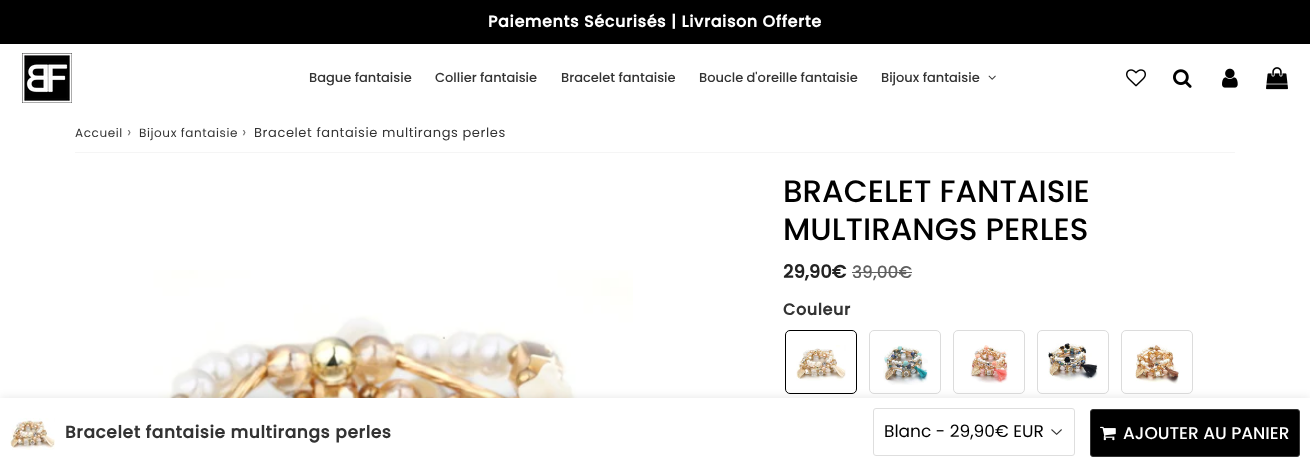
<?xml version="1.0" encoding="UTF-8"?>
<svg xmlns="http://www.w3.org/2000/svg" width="1310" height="467">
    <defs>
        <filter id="blur1" x="-50%" y="-200%" width="200%" height="500%"><feGaussianBlur stdDeviation="5"/></filter>
    </defs>
    <rect width="100%" height="100%" fill="#FFFFFF"/>
    <rect x="0" y="0" width="1310" height="44" fill="#000000"/>
    <text x="488" y="27" font-family="Poppins" font-size="16" font-weight="700" letter-spacing="0.6" fill="#FFFFFF">Paiements Sécurisés | Livraison Offerte</text>
    <image x="22" y="53" width="50" height="50" href="img_01.png"/>
    <text x="309" y="82" font-family="Poppins" font-size="13" font-weight="500" fill="#333333">Bague fantaisie</text>
    <text x="435" y="82" font-family="Poppins" font-size="13" font-weight="500" fill="#333333">Collier fantaisie</text>
    <text x="561" y="82" font-family="Poppins" font-size="13" font-weight="500" fill="#333333">Bracelet fantaisie</text>
    <text x="699" y="82" font-family="Poppins" font-size="13" font-weight="500" fill="#333333">Boucle d'oreille fantaisie</text>
    <text x="881" y="82" font-family="Poppins" font-size="13" font-weight="500" fill="#333333">Bijoux fantaisie</text>
    <image x="988" y="75" width="8" height="5" href="img_02.png"/>
    <image x="1126" y="69" width="20" height="18" href="img_03.png"/>
    <image x="1173" y="69" width="19" height="19" href="img_04.png"/>
    <image x="1222" y="68" width="16" height="20" href="img_05.png"/>
    <image x="1266" y="67" width="22" height="23" href="img_06.png"/>
    <rect x="75" y="152" width="1160" height="1" fill="#F5F5F5"/>
    <text x="75" y="137" font-family="Poppins" font-size="12" letter-spacing="0.6" fill="#333333">Accueil</text>
    <text x="127" y="137" font-family="Poppins" font-size="15" letter-spacing="0.6" fill="#767676">›</text>
    <text x="139" y="137" font-family="Poppins" font-size="12" letter-spacing="0.6" fill="#333333">Bijoux fantaisie</text>
    <text x="242" y="137" font-family="Poppins" font-size="15" letter-spacing="0.6" fill="#767676">›</text>
    <text x="254" y="137" font-family="Poppins" font-size="13" letter-spacing="0.6" fill="#333333">Bracelet fantaisie multirangs perles</text>
    <text font-family="Poppins" font-size="31" font-weight="500" fill="#000000">
        <tspan x="783" y="202">BRACELET FANTAISIE</tspan>
        <tspan x="783" y="240">MULTIRANGS PERLES</tspan>
    </text>
    <text x="783" y="278" font-family="Poppins" font-size="18" font-weight="700" fill="#232323">29,90€</text>
    <text x="852" y="278" font-family="Poppins" font-size="17" font-weight="500" fill="#606060">39,00€</text>
    <rect x="852" y="272" width="60" height="1" fill="#606060"/>
    <text x="783" y="315" font-family="Poppins" font-size="16" font-weight="700" letter-spacing="0.6" fill="#333333">Couleur</text>
    <rect x="785.5" y="330.5" width="71" height="63" rx="4.5" fill="none" stroke="#000000"/>
    <image x="796" y="345" width="50" height="36" href="img_07.png"/>
    <rect x="869.5" y="330.5" width="71" height="63" rx="4.5" fill="none" stroke="#DCDCDC"/>
    <image x="883" y="345" width="45" height="40" href="img_08.png"/>
    <rect x="953.5" y="330.5" width="71" height="63" rx="4.5" fill="none" stroke="#DCDCDC"/>
    <image x="970" y="345" width="38" height="39" href="img_09.png"/>
    <rect x="1037.5" y="330.5" width="71" height="63" rx="4.5" fill="none" stroke="#DCDCDC"/>
    <image x="1048" y="343" width="50" height="38" href="img_10.png"/>
    <rect x="1121.5" y="330.5" width="71" height="63" rx="4.5" fill="none" stroke="#DCDCDC"/>
    <image x="1135" y="344" width="45" height="40" href="img_11.png"/>
    <image x="153" y="270" width="480" height="128" href="img_12.png"/>
    <rect x="0" y="398" width="1310" height="69" fill="#000000" fill-opacity="0.1" filter="url(#blur1)"/>
    <rect x="0" y="398" width="1310" height="69" fill="#FFFFFF"/>
    <image x="10" y="418" width="45" height="32" href="img_13.png"/>
    <text x="65" y="438" font-family="Poppins" font-size="17" font-weight="700" letter-spacing="0.6" fill="#333333">Bracelet fantaisie multirangs perles</text>
    <image x="1051" y="429" width="11" height="6" href="img_14.png"/>
    <rect x="873.5" y="408.5" width="201" height="47" rx="2.5" fill="none" stroke="#DEDEDE"/>
    <text x="884" y="437" font-family="Poppins" font-size="17" fill="#000000">Blanc - 29,90€ EUR</text>
    <rect x="1090.5" y="409.5" width="209" height="47" rx="2.5" fill="#000000" stroke="#333333"/>
    <image x="1100" y="426" width="16" height="15" href="img_15.png"/>
    <text x="1123" y="439" font-family="Poppins" font-size="17" font-weight="500" fill="#FFFFFF">AJOUTER AU PANIER</text>
</svg>
